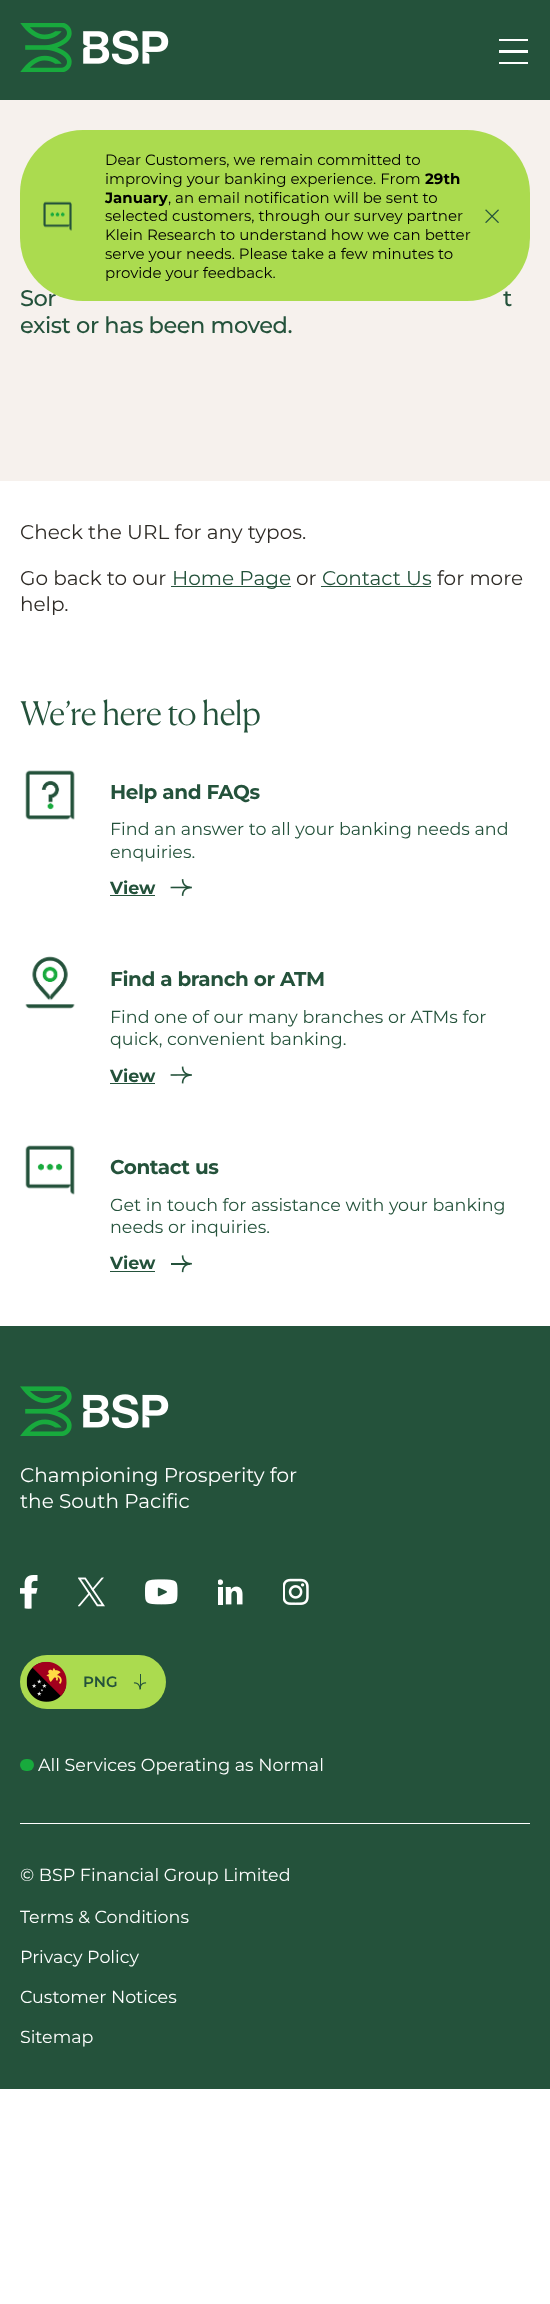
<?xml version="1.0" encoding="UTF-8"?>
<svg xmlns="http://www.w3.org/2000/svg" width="550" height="2304">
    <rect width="100%" height="100%" fill="#FFFFFF"/>
    <rect x="0" y="0" width="550" height="100" fill="#24523B"/>
    <image x="20" y="23" width="149" height="49" href="img_01.png"/>
    <rect x="499" y="39" width="29" height="2" fill="#FFFFFF"/>
    <rect x="499" y="50" width="29" height="3" fill="#FFFFFF"/>
    <rect x="499" y="62" width="29" height="2" fill="#FFFFFF"/>
    <rect x="0" y="100" width="550" height="381" fill="#F6F1ED"/>
    <text x="20" y="306" font-family="Montserrat" font-size="22.5" font-weight="500" letter-spacing="-0.45" fill="#24523B">Sor</text>
    <text x="503" y="306" font-family="Montserrat" font-size="22.5" font-weight="500" letter-spacing="-0.45" fill="#24523B">t</text>
    <rect x="20" y="130" width="510" height="171" rx="63" fill="#ABDB4F"/>
    <image x="43" y="201" width="29" height="30" href="img_02.png"/>
    <text font-family="Montserrat" font-size="15" fill="#000000">
        <tspan x="105" y="165">Dear Customers, we remain committed to</tspan>
        <tspan x="105" y="184">improving your banking experience. From</tspan>
    </text>
    <text x="425" y="184" font-family="Montserrat" font-size="15" font-weight="700" fill="#000000">29th</text>
    <text x="105" y="203" font-family="Montserrat" font-size="15" font-weight="700" fill="#000000">January</text>
    <text x="168" y="203" font-family="Montserrat" font-size="15" fill="#000000">, an email notification will be sent to</text>
    <text font-family="Montserrat" font-size="15" fill="#000000">
        <tspan x="105" y="221">selected customers, through our survey partner</tspan>
        <tspan x="105" y="240">Klein Research to understand how we can better</tspan>
        <tspan x="105" y="259">serve your needs. Please take a few minutes to</tspan>
        <tspan x="105" y="278">provide your feedback.</tspan>
    </text>
    <image x="485" y="209" width="14" height="14" href="img_03.png"/>
    <text x="20" y="333" font-family="Montserrat" font-size="22.5" font-weight="500" letter-spacing="-0.45" fill="#24523B">exist or has been moved.</text>
    <text x="20" y="539" font-family="Montserrat" font-size="20" fill="#2E2B26">Check the URL for any typos.</text>
    <text x="20" y="585" font-family="Montserrat" font-size="20" fill="#2E2B26">Go back to our</text>
    <rect x="171" y="586" width="120" height="1" fill="#24523B"/>
    <text x="172" y="585" font-family="Montserrat" font-size="20" fill="#24523B">Home Page</text>
    <text x="296" y="585" font-family="Montserrat" font-size="20" fill="#2E2B26">or</text>
    <text x="322" y="585" font-family="Montserrat" font-size="20" fill="#24523B">Contact Us</text>
    <rect x="321" y="586" width="110" height="1" fill="#24523B"/>
    <text x="437" y="585" font-family="Montserrat" font-size="20" fill="#2E2B26">for more</text>
    <text x="20" y="611" font-family="Montserrat" font-size="20" fill="#2E2B26">help.</text>
    <text x="20" y="725" font-family="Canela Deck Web" font-size="32.5" font-weight="300" letter-spacing="-0.6" fill="#24523B">We’re here to help</text>
    <image x="25" y="770" width="50" height="50" href="img_04.png"/>
    <text x="110" y="799" font-family="Montserrat" font-size="20" font-weight="700" letter-spacing="-0.4" fill="#24523B">Help and FAQs</text>
    <text font-family="Montserrat" font-size="17.5" fill="#24523B">
        <tspan x="110" y="835">Find an answer to all your banking needs and</tspan>
        <tspan x="110" y="858">enquiries.</tspan>
    </text>
    <text x="110" y="894" font-family="Montserrat" font-size="17.5" font-weight="700" fill="#24523B">View</text>
    <rect x="110" y="895" width="45" height="1" fill="#24523B"/>
    <image x="170" y="879" width="22" height="17" href="img_05.png"/>
    <image x="25" y="956" width="50" height="53" href="img_06.png"/>
    <text x="110" y="986" font-family="Montserrat" font-size="20" font-weight="700" letter-spacing="-0.4" fill="#24523B">Find a branch or ATM</text>
    <text font-family="Montserrat" font-size="17.5" fill="#24523B">
        <tspan x="110" y="1023">Find one of our many branches or ATMs for</tspan>
        <tspan x="110" y="1045">quick, convenient banking.</tspan>
    </text>
    <text x="110" y="1082" font-family="Montserrat" font-size="17.5" font-weight="700" fill="#24523B">View</text>
    <rect x="110" y="1083" width="45" height="1" fill="#24523B"/>
    <image x="170" y="1066" width="22" height="18" href="img_07.png"/>
    <image x="25" y="1145" width="50" height="50" href="img_08.png"/>
    <text x="110" y="1174" font-family="Montserrat" font-size="20" font-weight="700" letter-spacing="-0.4" fill="#24523B">Contact us</text>
    <text font-family="Montserrat" font-size="17.5" fill="#24523B">
        <tspan x="110" y="1211">Get in touch for assistance with your banking</tspan>
        <tspan x="110" y="1233">needs or inquiries.</tspan>
    </text>
    <text x="110" y="1269" font-family="Montserrat" font-size="17.5" font-weight="700" fill="#24523B">View</text>
    <rect x="110" y="1271" width="45" height="1" fill="#24523B"/>
    <image x="171" y="1255" width="21" height="18" href="img_09.png"/>
    <rect x="0" y="1326" width="550" height="763" fill="#24523B"/>
    <rect x="20" y="1823" width="510" height="1" fill="#FFFFFF"/>
    <image x="20" y="1386" width="149" height="50" href="img_10.png"/>
    <text font-family="Montserrat" font-size="20" fill="#FFFFFF">
        <tspan x="20" y="1482">Championing Prosperity for</tspan>
        <tspan x="20" y="1508">the South Pacific</tspan>
    </text>
    <image x="20" y="1575" width="18" height="34" href="img_11.png"/>
    <image x="78" y="1577" width="27" height="30" href="img_12.png"/>
    <image x="145" y="1579" width="33" height="26" href="img_13.png"/>
    <image x="218" y="1579" width="25" height="26" href="img_14.png"/>
    <image x="283" y="1578" width="26" height="27" href="img_15.png"/>
    <rect x="20" y="1655" width="146" height="54" rx="27" fill="#ABDB4F"/>
    <image x="26" y="1661" width="41" height="41" href="img_16.png"/>
    <text x="83" y="1687" font-family="Montserrat" font-size="15" font-weight="600" fill="#24523B">PNG</text>
    <image x="133" y="1674" width="14" height="16" href="img_17.png"/>
    <rect x="20" y="1759" width="14" height="12" rx="6" fill="#18AA3D"/>
    <text x="38" y="1771" font-family="Montserrat" font-size="17.5" fill="#FFFFFF">All Services Operating as Normal</text>
    <text x="20" y="1881" font-family="Montserrat" font-size="17.5" fill="#FFFFFF">© BSP Financial Group Limited</text>
    <text x="20" y="1923" font-family="Montserrat" font-size="17.5" fill="#FFFFFF">Terms &amp; Conditions</text>
    <text x="20" y="1963" font-family="Montserrat" font-size="17.5" fill="#FFFFFF">Privacy Policy</text>
    <text x="20" y="2003" font-family="Montserrat" font-size="17.5" fill="#FFFFFF">Customer Notices</text>
    <text x="20" y="2043" font-family="Montserrat" font-size="17.5" fill="#FFFFFF">Sitemap</text>
</svg>
